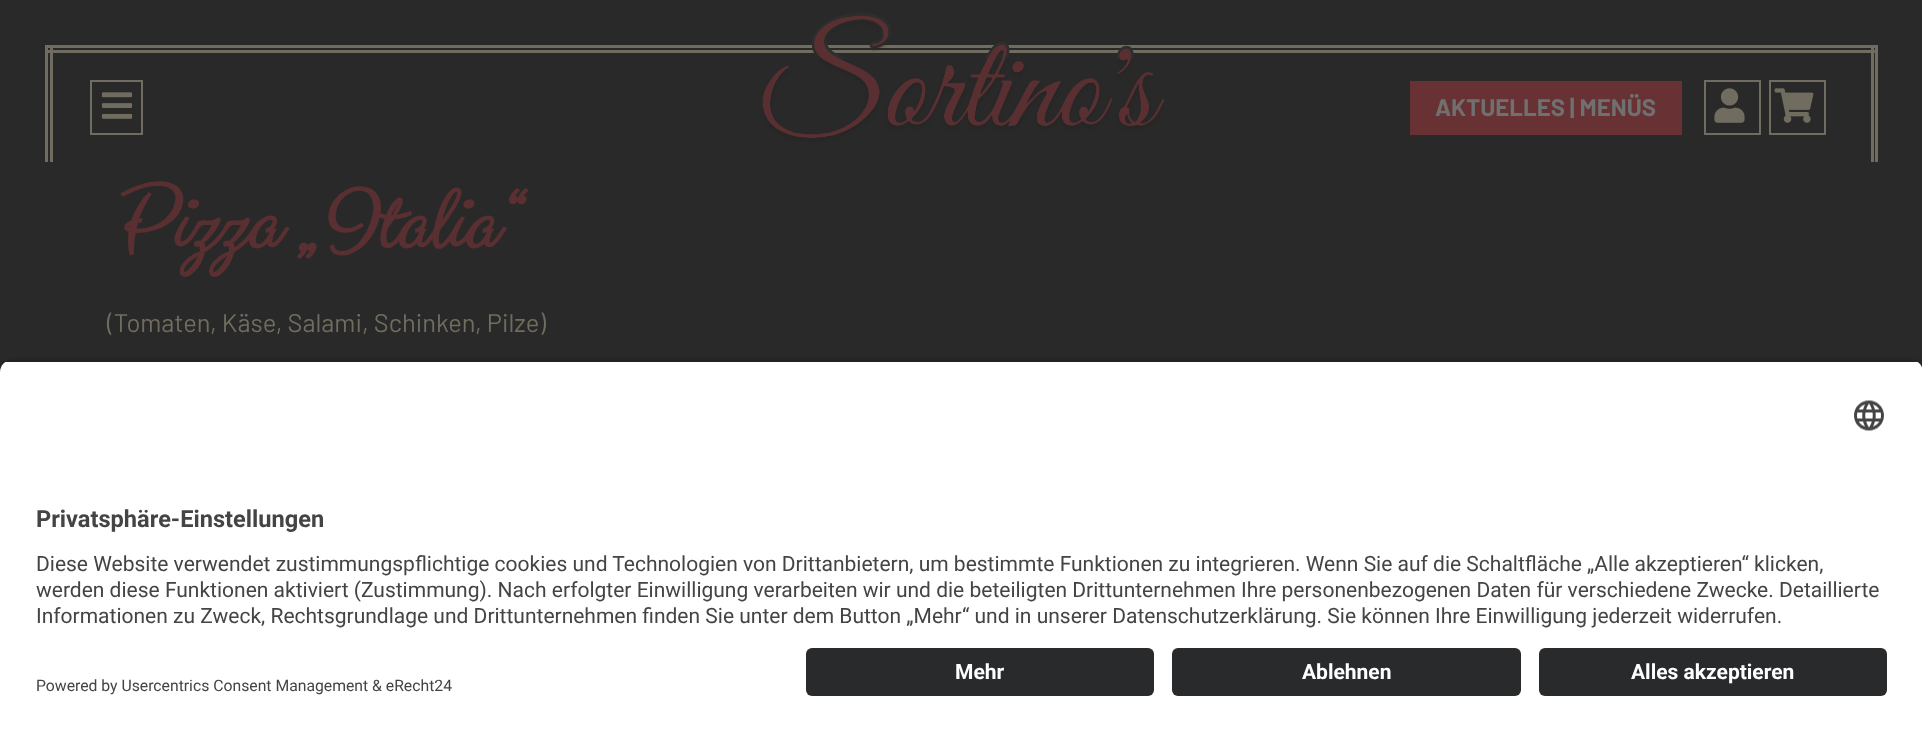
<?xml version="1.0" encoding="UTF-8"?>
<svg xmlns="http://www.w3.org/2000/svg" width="1922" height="732">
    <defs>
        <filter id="blur1" x="-50%" y="-200%" width="200%" height="500%"><feGaussianBlur stdDeviation="5"/></filter>
        <clipPath id="clip1"><path d="M 12 360 H 1911 C 1917.5 360 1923 365.5 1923 372 V 636 H 0 V 372 C 0 365.5 5.5 360 12 360 Z"/></clipPath>
    </defs>
    <rect width="100%" height="100%" fill="#292929"/>
    <rect x="45" y="45" width="1833" height="3" fill="#706D60"/>
    <rect x="45" y="50" width="1833" height="3" fill="#706D60"/>
    <rect x="1871" y="45" width="3" height="117" fill="#706D60"/>
    <rect x="1875" y="45" width="3" height="117" fill="#706D60"/>
    <rect x="45" y="45" width="3" height="117" fill="#706D60"/>
    <rect x="50" y="45" width="3" height="117" fill="#706D60"/>
    <rect x="91" y="81" width="51" height="53" fill="none" stroke="#706D60" stroke-width="2"/>
    <image x="101" y="92" width="32" height="27" href="img_01.png"/>
    <image x="762" y="13" width="402" height="129" href="img_02.png"/>
    <rect x="1410" y="81" width="272" height="54" fill="#683234"/>
    <text x="1435" y="116" font-family="Barlow" font-size="24" font-weight="700" fill="#707070">AKTUELLES | MENÜS</text>
    <rect x="1705" y="81" width="55" height="53" fill="none" stroke="#706D60" stroke-width="2"/>
    <image x="1714" y="88" width="31" height="35" href="img_03.png"/>
    <rect x="1770" y="81" width="55" height="53" fill="none" stroke="#706D60" stroke-width="2"/>
    <image x="1774" y="88" width="40" height="35" href="img_04.png"/>
    <text x="107" y="251" font-family="Clicker Script" font-size="90" font-weight="700" font-style="italic" fill="#592F31">Pizza „Italia“</text>
    <text x="107" y="332" font-family="Barlow" font-size="25.5" fill="#706D60">(Tomaten, Käse, Salami, Schinken, Pilze)</text>
    <image x="0" y="370" width="1" height="2" href="img_05.png"/>
    <rect x="0" y="365" width="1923" height="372" rx="12" fill="#000000" fill-opacity="0.8" filter="url(#blur1)"/>
    <g clip-path="url(#clip1)">
        <rect x="0" y="362" width="1922" height="274" fill="#FFFFFF"/>
    </g>
    <image x="1854" y="400" width="30" height="31" href="img_06.png"/>
    <text x="36" y="527" font-family="Roboto" font-size="23.6" font-weight="700" fill="#444444">Privatsphäre-Einstellungen</text>
    <text font-family="Roboto" font-size="21" fill="#444444">
        <tspan x="36" y="571">Diese Website verwendet zustimmungspflichtige cookies und Technologien von Drittanbietern, um bestimmte Funktionen zu integrieren. Wenn Sie auf die Schaltfläche „Alle akzeptieren“ klicken,</tspan>
        <tspan x="36" y="597">werden diese Funktionen aktiviert (Zustimmung). Nach erfolgter Einwilligung verarbeiten wir und die beteiligten Drittunternehmen Ihre personenbezogenen Daten für verschiedene Zwecke. Detaillierte</tspan>
        <tspan x="36" y="623">Informationen zu Zweck, Rechtsgrundlage und Drittunternehmen finden Sie unter dem Button „Mehr“ und in unserer Datenschutzerklärung. Sie können Ihre Einwilligung jederzeit widerrufen.</tspan>
    </text>
    <rect x="0" y="636" width="1922" height="96" fill="#FFFFFF"/>
    <rect x="806" y="648" width="348" height="48" rx="6" fill="#292A2B"/>
    <text x="955" y="679" font-family="Roboto" font-size="21" font-weight="700" fill="#FFFFFF">Mehr</text>
    <rect x="1172" y="648" width="349" height="48" rx="6" fill="#292A2B"/>
    <text x="1302" y="679" font-family="Roboto" font-size="21" font-weight="700" fill="#FFFFFF">Ablehnen</text>
    <rect x="1539" y="648" width="348" height="48" rx="6" fill="#292A2B"/>
    <text x="1631" y="679" font-family="Roboto" font-size="21" font-weight="700" fill="#FFFFFF">Alles akzeptieren</text>
    <text x="36" y="691" font-family="Roboto" font-size="15.75" fill="#444444">Powered by Usercentrics Consent Management &amp; eRecht24</text>
</svg>
